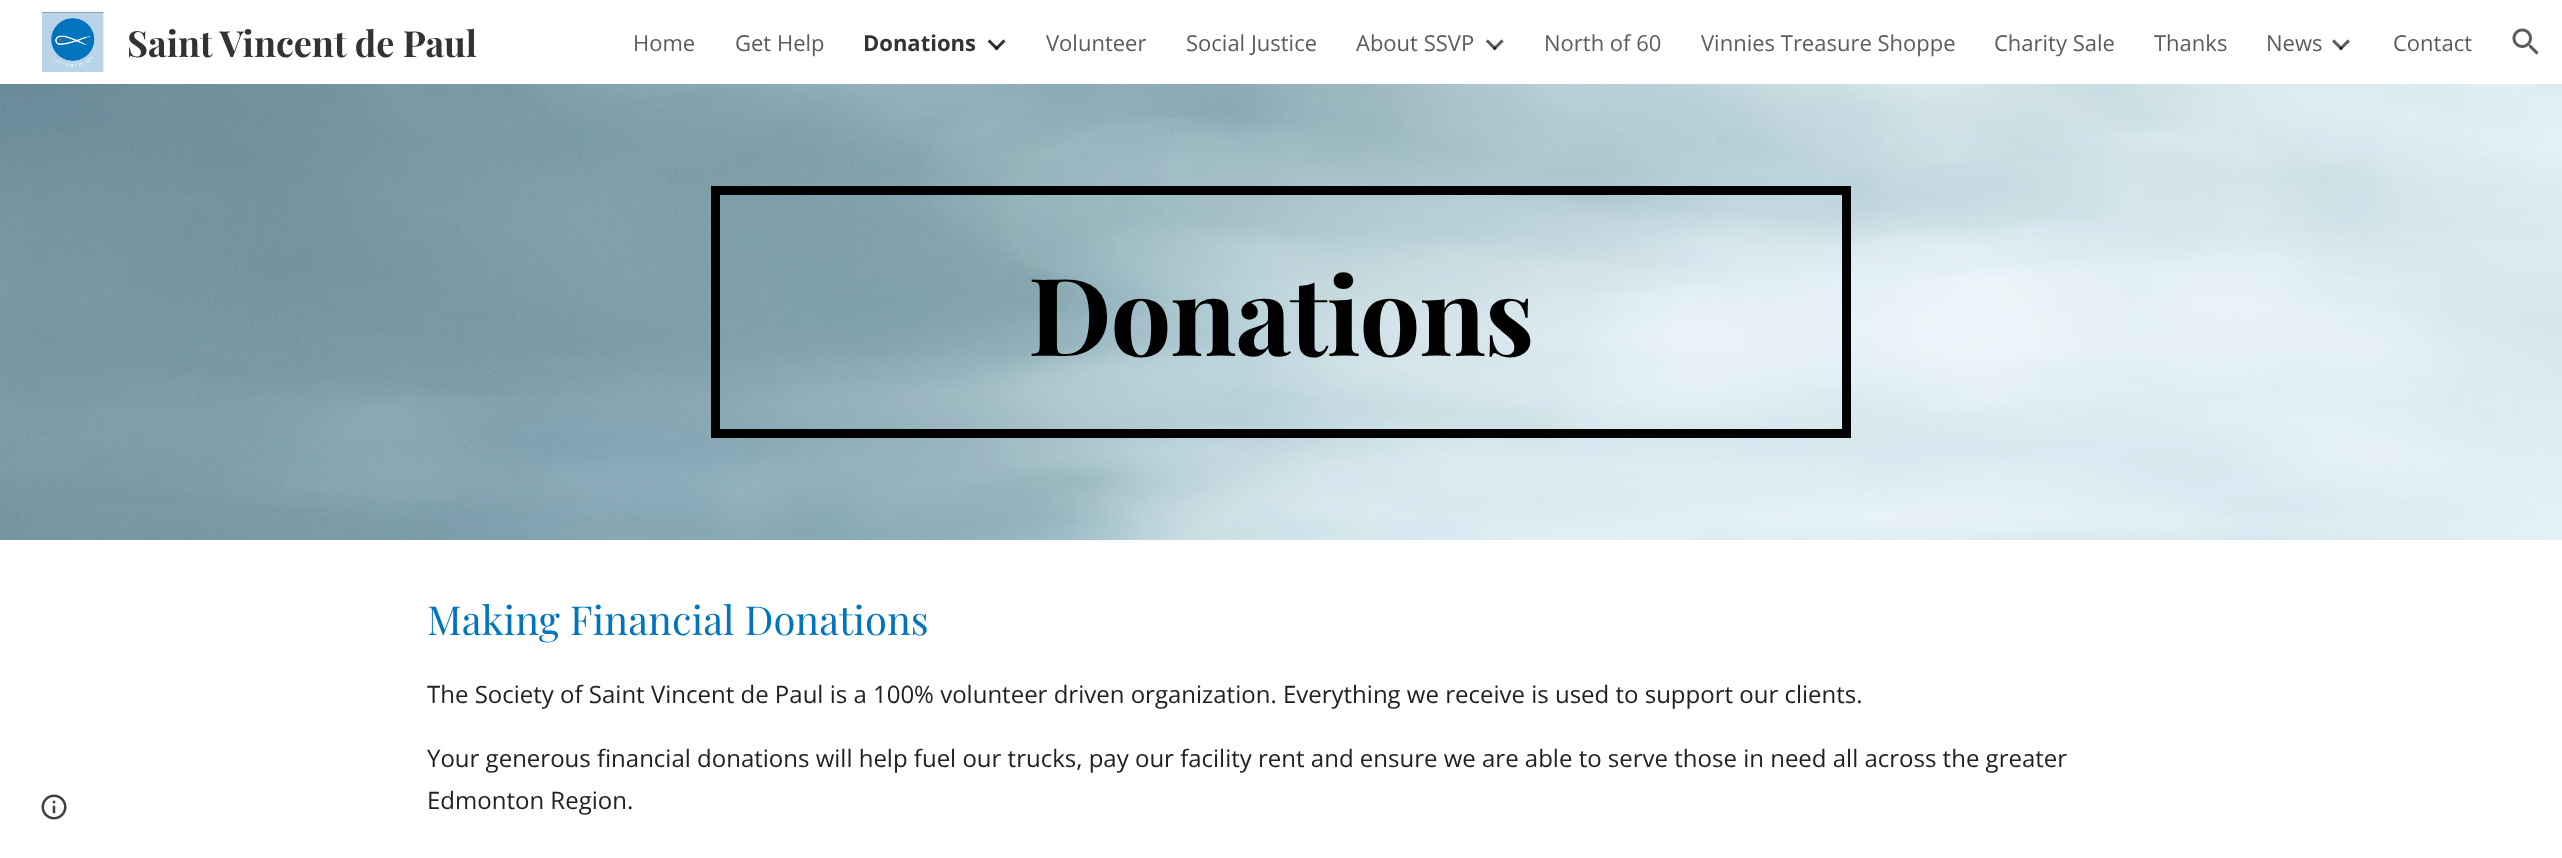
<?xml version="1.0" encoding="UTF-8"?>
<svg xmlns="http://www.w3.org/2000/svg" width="2562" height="858">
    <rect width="100%" height="100%" fill="#FFFFFF"/>
    <image x="41" y="11" width="63" height="62" href="img_01.png"/>
    <text x="127" y="57" font-family="Playfair Display" font-size="36" font-weight="700" fill="#333333">Saint Vincent de Paul</text>
    <text x="633" y="51" font-family="Open Sans" font-size="22" fill="#5C5C5C">Home</text>
    <text x="735" y="51" font-family="Open Sans" font-size="22" fill="#5C5C5C">Get Help</text>
    <text x="863" y="51" font-family="Open Sans" font-size="22" font-weight="700" fill="#333333">Donations</text>
    <image x="987" y="39" width="19" height="12" href="img_02.png"/>
    <text x="1046" y="51" font-family="Open Sans" font-size="22" fill="#5C5C5C">Volunteer</text>
    <text x="1186" y="51" font-family="Open Sans" font-size="22" fill="#5C5C5C">Social Justice</text>
    <text x="1356" y="51" font-family="Open Sans" font-size="22" fill="#5C5C5C">About SSVP</text>
    <image x="1485" y="39" width="19" height="12" href="img_03.png"/>
    <text x="1544" y="51" font-family="Open Sans" font-size="22" fill="#5C5C5C">North of 60</text>
    <text x="1701" y="51" font-family="Open Sans" font-size="22" fill="#5C5C5C">Vinnies Treasure Shoppe</text>
    <text x="1994" y="51" font-family="Open Sans" font-size="22" fill="#5C5C5C">Charity Sale</text>
    <text x="2154" y="51" font-family="Open Sans" font-size="22" fill="#5C5C5C">Thanks</text>
    <text x="2266" y="51" font-family="Open Sans" font-size="22" fill="#5C5C5C">News</text>
    <image x="2332" y="39" width="18" height="12" href="img_04.png"/>
    <text x="2393" y="51" font-family="Open Sans" font-size="22" fill="#5C5C5C">Contact</text>
    <image x="2512" y="28" width="27" height="27" href="img_05.png"/>
    <image x="41" y="794" width="26" height="26" href="img_06.png"/>
    <image x="0" y="84" width="2562" height="456" href="img_07.png"/>
    <rect x="715.5" y="190.5" width="1131" height="243" fill="none" stroke="#000000" stroke-width="9"/>
    <text x="1028" y="356" font-family="Playfair Display" font-size="108" font-weight="700" letter-spacing="-1.25" fill="#000000">Donations</text>
    <text x="427" y="635" font-family="Playfair Display" font-size="40" fill="#0074BC">Making Financial Donations</text>
    <text x="427" y="703" font-family="Open Sans" font-size="24" fill="#212121">The Society of Saint Vincent de Paul is a 100% volunteer driven organization. Everything we receive is used to support our clients.</text>
    <text font-family="Open Sans" font-size="24" fill="#212121">
        <tspan x="427" y="767">Your generous financial donations will help fuel our trucks, pay our facility rent and ensure we are able to serve those in need all across the greater</tspan>
        <tspan x="427" y="809">Edmonton Region.</tspan>
    </text>
</svg>
